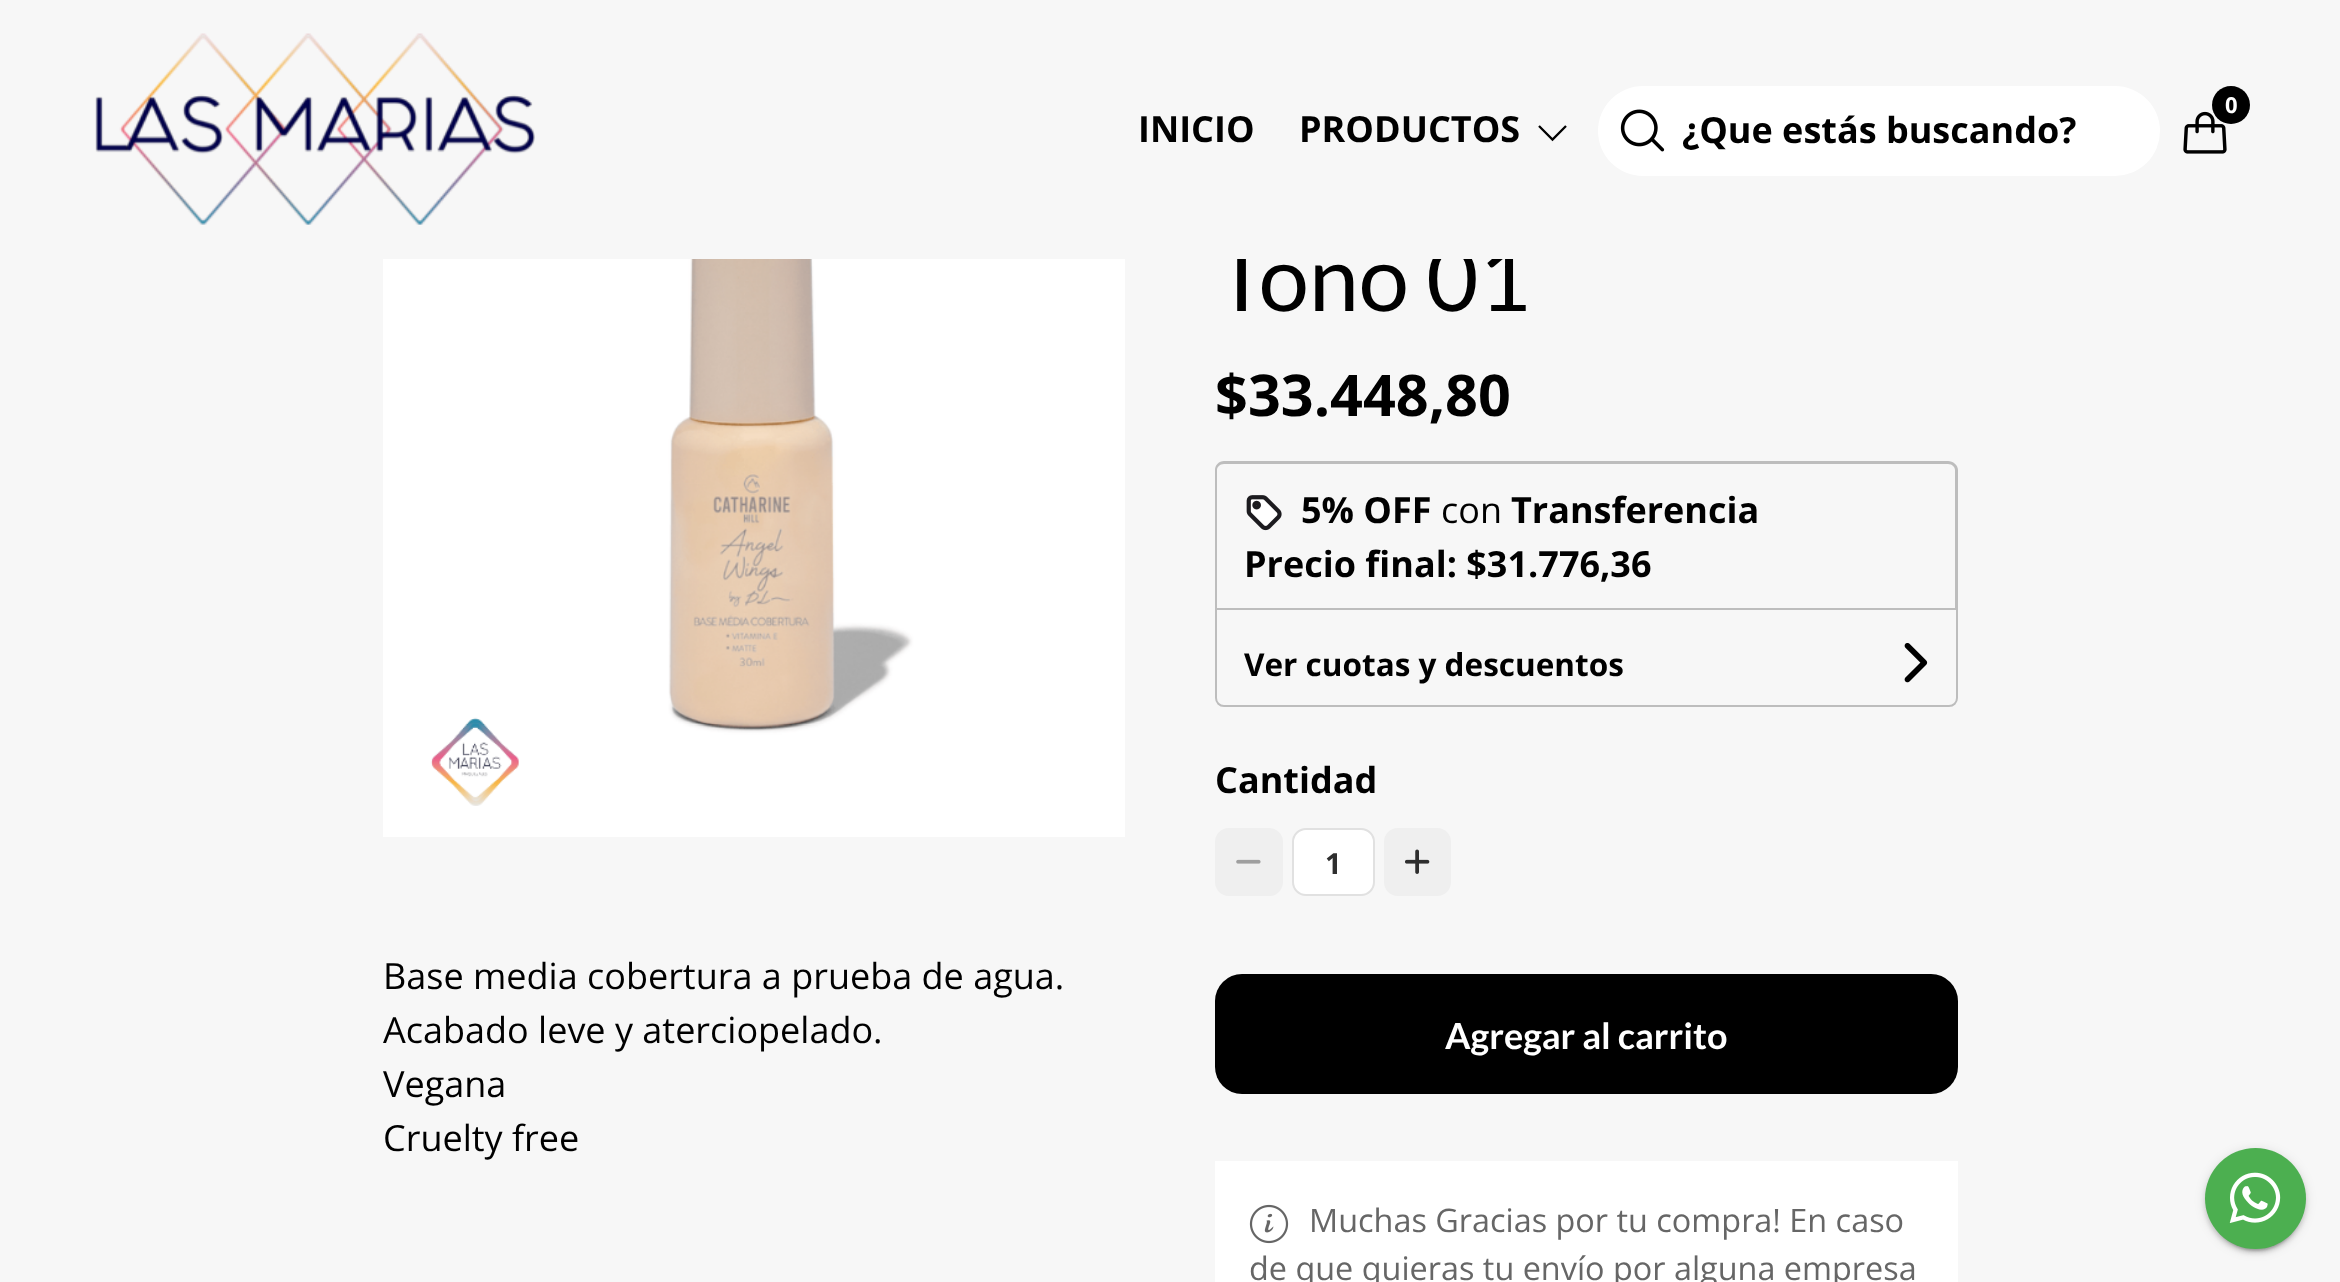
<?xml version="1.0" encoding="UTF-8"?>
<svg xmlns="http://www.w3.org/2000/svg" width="2340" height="1282">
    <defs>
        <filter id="blur1" x="-50%" y="-200%" width="200%" height="500%"><feGaussianBlur stdDeviation="1"/></filter>
        <filter id="blur2" x="-50%" y="-200%" width="200%" height="500%"><feGaussianBlur stdDeviation="5.5"/></filter>
        <filter id="blur3" x="-50%" y="-200%" width="200%" height="500%"><feGaussianBlur stdDeviation="2"/></filter>
    </defs>
    <rect width="100%" height="100%" fill="#F7F7F7"/>
    <text x="1215" y="311" font-family="Lato" font-size="90" fill="#000000">Tono 01</text>
    <rect x="1216" y="245" width="298" height="14" fill="#F7F7F7"/>
    <image x="95" y="33" width="440" height="192" href="img_01.png"/>
    <image x="2183" y="111" width="44" height="43" href="img_02.png"/>
    <circle cx="2231" cy="105" r="19" fill="#000000"/>
    <text x="2225" y="113" font-family="Open Sans" font-size="22" font-weight="700" fill="#FFFFFF">0</text>
    <text x="1138" y="142" font-family="Open Sans" font-size="36" font-weight="700" fill="#000000">INICIO</text>
    <text x="1299" y="142" font-family="Open Sans" font-size="36" font-weight="700" fill="#000000">PRODUCTOS</text>
    <path d="M 1566 126 L 1552.5 139.5 L 1539 126" fill="none" stroke="#000000" stroke-width="2.3"/>
    <rect x="1598" y="86" width="562" height="90" rx="45" fill="#FFFFFF"/>
    <image x="1620" y="109" width="45" height="43" href="img_03.png"/>
    <text x="1682" y="143" font-family="Open Sans" font-size="36" font-weight="700" fill="#000000">¿Que estás buscando?</text>
    <image x="383" y="259" width="742" height="578" href="img_04.png"/>
    <text font-family="Open Sans" font-size="36" fill="#000000">
        <tspan x="383" y="989">Base media cobertura a prueba de agua.</tspan>
        <tspan x="383" y="1043">Acabado leve y aterciopelado.</tspan>
        <tspan x="383" y="1097">Vegana</tspan>
        <tspan x="383" y="1151">Cruelty free</tspan>
    </text>
    <text x="1215" y="416" font-family="Open Sans" font-size="57.5" font-weight="700" fill="#000000">$33.448,80</text>
    <path d="M 1224 461 H 1948 C 1953 461 1958 465 1958 470 V 608 H 1215 V 470 C 1215 465 1219 461 1224 461 Z M 1224 464 H 1948 C 1952 464 1955 467 1955 470 V 608 H 1217 V 470 C 1217 467 1220 464 1224 464 Z" fill="#BDBDBD" fill-rule="evenodd"/>
    <image x="1246" y="495" width="36" height="36" href="img_05.png"/>
    <text x="1301" y="523" font-family="Open Sans" font-size="36" font-weight="700" fill="#000000">5% OFF</text>
    <text x="1441" y="523" font-family="Open Sans" font-size="36" fill="#000000">con</text>
    <text x="1511" y="523" font-family="Open Sans" font-size="36" font-weight="700" fill="#000000">Transferencia</text>
    <text x="1244" y="577" font-family="Open Sans" font-size="36" font-weight="700" fill="#000000">Precio final: $31.776,36</text>
    <path d="M 1216 609 H 1957 V 698 C 1957 702.5 1953.5 706 1949 706 H 1224 C 1219.5 706 1216 702.5 1216 698 Z" fill="none" stroke="#BDBDBD" stroke-width="2"/>
    <text x="1244" y="676" font-family="Open Sans" font-size="31.5" font-weight="700" fill="#000000">Ver cuotas y descuentos</text>
    <image x="1904" y="643" width="24" height="40" href="img_06.png"/>
    <text x="1215" y="793" font-family="Open Sans" font-size="36" font-weight="700" fill="#000000">Cantidad</text>
    <rect x="1215" y="828" width="68" height="68" rx="14" fill="#EFEFEF"/>
    <image x="1236" y="859" width="25" height="5" href="img_07.png"/>
    <rect x="1293" y="829" width="81" height="66" rx="13" fill="#FFFFFF" stroke="#E1E1E1" stroke-width="2"/>
    <text x="1325" y="874" font-family="Open Sans" font-size="29" font-weight="700" fill="#2E2E2E">1</text>
    <rect x="1384" y="828" width="67" height="68" rx="14" fill="#EFEFEF"/>
    <image x="1405" y="849" width="25" height="25" href="img_08.png"/>
    <rect x="1215" y="974" width="743" height="120" rx="27" fill="#000000"/>
    <text x="1445" y="1049" font-family="Lato" font-size="36" font-weight="700" fill="#FFFFFF">Agregar al carrito</text>
    <rect x="1215" y="1161" width="743" height="121" fill="#FFFFFF"/>
    <image x="1249" y="1204" width="40" height="40" href="img_09.png"/>
    <text x="1309" y="1232" font-family="Open Sans" font-size="32.4" fill="#666666">Muchas Gracias por tu compra! En caso</text>
    <text x="1249" y="1280" font-family="Open Sans" font-size="32.4" fill="#666666">de que quieras tu envío por alguna empresa</text>
    <rect x="2210" y="1159" width="92" height="92" rx="46" fill="#000000" fill-opacity="0.2" filter="url(#blur1)"/>
    <rect x="2205" y="1150" width="101" height="101" rx="50.5" fill="#000000" fill-opacity="0.12" filter="url(#blur2)"/>
    <rect x="2205" y="1152" width="101" height="101" rx="50.5" fill="#000000" fill-opacity="0.14" filter="url(#blur3)"/>
    <circle cx="2255.5" cy="1198.5" r="50.5" fill="#4CAF50"/>
    <image x="2229" y="1172" width="52" height="51" href="img_10.png"/>
</svg>
